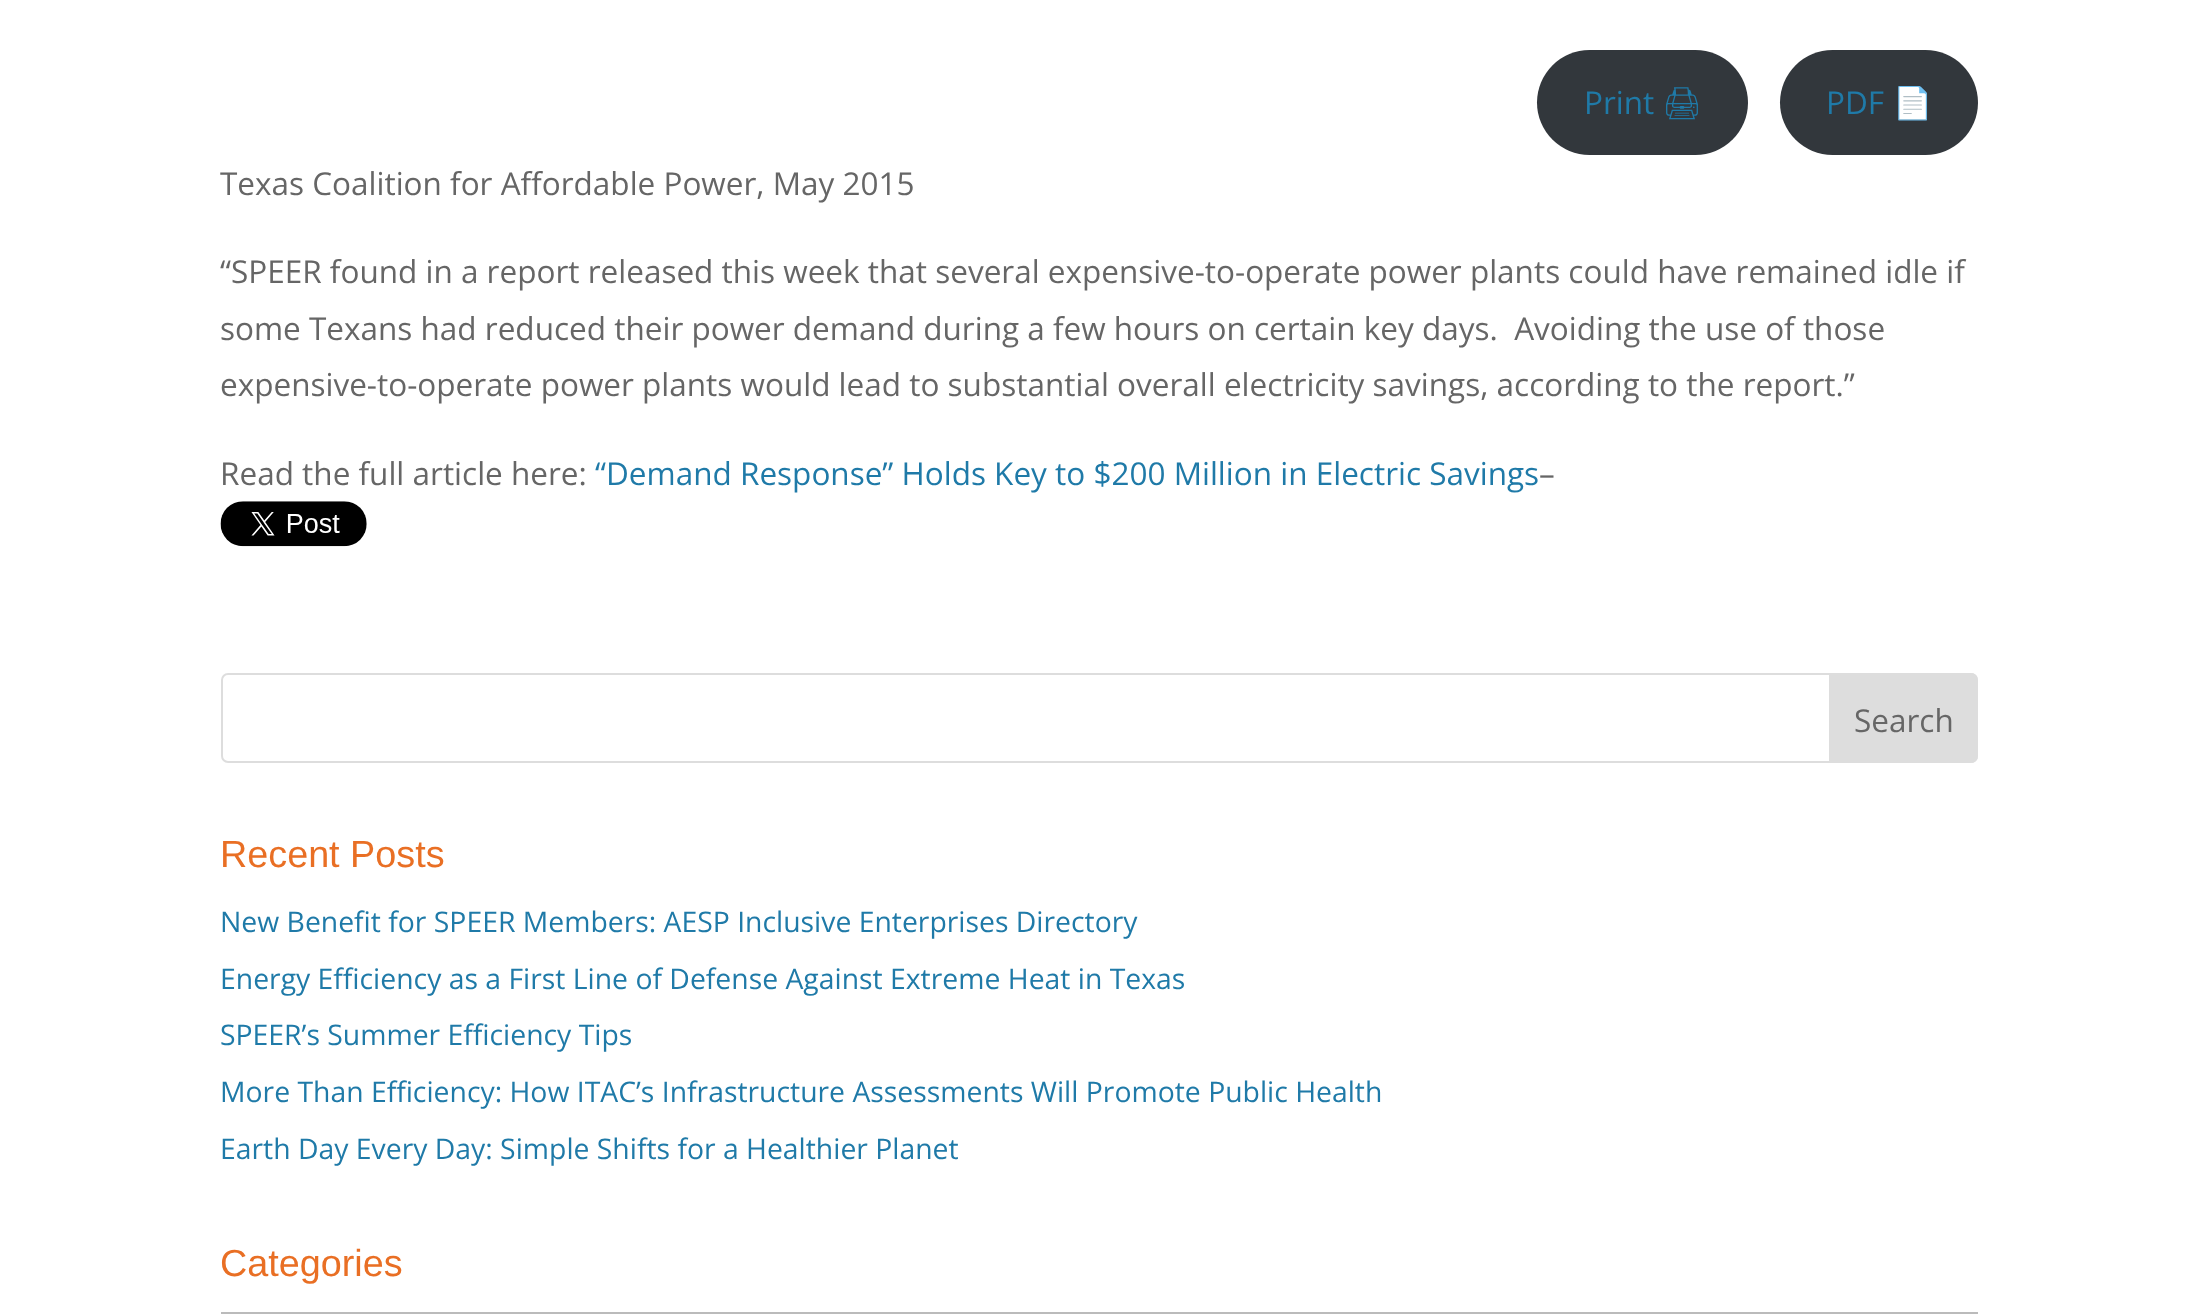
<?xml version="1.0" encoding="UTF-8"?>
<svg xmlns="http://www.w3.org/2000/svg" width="2198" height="1314">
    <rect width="100%" height="100%" fill="#FFFFFF"/>
    <rect x="1537" y="50" width="211" height="105" rx="52.5" fill="#32373C"/>
    <text x="1584" y="114" font-family="Open Sans" font-size="31.5" fill="#1F7AA8">Print</text>
    <text x="1662" y="114" font-family="Noto Emoji" font-size="31.5" font-weight="500" fill="#1F7AA8">🖨</text>
    <rect x="1780" y="50" width="198" height="105" rx="52.5" fill="#32373C"/>
    <text x="1826" y="114" font-family="Open Sans" font-size="31.5" fill="#1F7AA8">PDF</text>
    <text x="1893" y="114" font-family="Noto Color Emoji" font-size="31.5" fill="#1F7AA8">📄</text>
    <text x="220" y="195" font-family="Open Sans" font-size="31.5" fill="#666666">Texas Coalition for Affordable Power, May 2015</text>
    <text font-family="Open Sans" font-size="31.5" fill="#666666" xml:space="preserve"><tspan x="220" y="283">“SPEER found in a report released this week that several expensive-to-operate power plants could have remained idle if</tspan><tspan x="220" y="340">some Texans had reduced their power demand during a few hours on certain key days.  Avoiding the use of those</tspan><tspan x="220" y="396">expensive-to-operate power plants would lead to substantial overall electricity savings, according to the report.”</tspan></text>
    <text x="220" y="485" font-family="Open Sans" font-size="31.5" fill="#666666">Read the full article here:</text>
    <text x="595" y="485" font-family="Open Sans" font-size="31.5" fill="#1F7AA8">“Demand Response” Holds Key to $200 Million in Electric Savings</text>
    <text x="1539" y="485" font-family="Open Sans" font-size="31.5" fill="#666666">–</text>
    <image x="220" y="501" width="147" height="46" href="img_01.png"/>
    <rect x="222" y="674" width="1755" height="88" rx="6" fill="none" stroke="#DDDDDD" stroke-width="2"/>
    <path d="M 1830 674 H 1971 C 1974.5 674 1977 676.5 1977 680 V 756 C 1977 759.5 1974.5 762 1971 762 H 1830 Z" fill="#DDDDDD" stroke="#DDDDDD" stroke-width="2"/>
    <text x="1854" y="732" font-family="Open Sans" font-size="31.5" fill="#666666">Search</text>
    <text x="220" y="867" font-family="Liberation Sans" font-size="37.75" fill="#E96F24">Recent Posts</text>
    <text x="220" y="932" font-family="Open Sans" font-size="28.35" fill="#1F7AA8">New Benefit for SPEER Members: AESP Inclusive Enterprises Directory</text>
    <text font-family="Open Sans" font-size="28.35" fill="#1F7AA8">
        <tspan x="220" y="989">Energy Efficiency as a First Line of Defense Against Extreme Heat in Texas</tspan>
        <tspan x="220" y="1045">SPEER’s Summer Efficiency Tips</tspan>
    </text>
    <text x="220" y="1102" font-family="Open Sans" font-size="28.35" fill="#1F7AA8">More Than Efficiency: How ITAC’s Infrastructure Assessments Will Promote Public Health</text>
    <text x="220" y="1159" font-family="Open Sans" font-size="28.35" fill="#1F7AA8">Earth Day Every Day: Simple Shifts for a Healthier Planet</text>
    <text x="220" y="1276" font-family="Liberation Sans" font-size="37.75" fill="#E96F24">Categories</text>
    <rect x="222" y="1313" width="1755" height="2" fill="none" stroke="#BBBBBB" stroke-width="2"/>
</svg>
